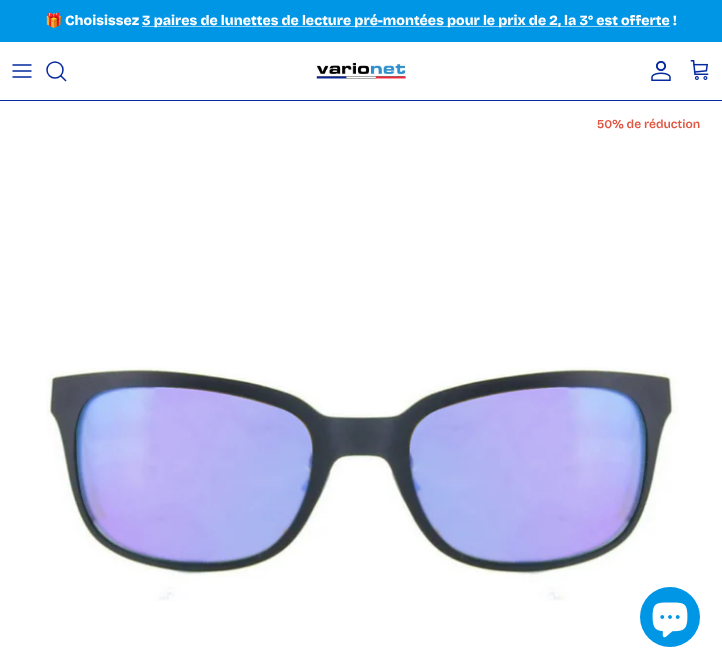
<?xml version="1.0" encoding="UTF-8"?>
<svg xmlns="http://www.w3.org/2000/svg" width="722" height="668">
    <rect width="100%" height="100%" fill="#FFFFFF"/>
    <rect x="0" y="0" width="722" height="42" fill="#0096E6"/>
    <text x="45" y="25" font-family="Noto Color Emoji" font-size="14" font-weight="700" fill="#FFFFFF">🎁</text>
    <text x="65" y="25" font-family="Bricolage Grotesque" font-size="14" font-weight="800" fill="#FFFFFF">Choisissez</text>
    <rect x="142" y="26" width="528" height="1" fill="#99D5F5"/>
    <text x="142" y="25" font-family="Bricolage Grotesque" font-size="14" font-weight="800" fill="#FFFFFF">3 paires de lunettes de lecture pré-montées pour le prix de 2, la 3° est offerte !</text>
    <rect x="0" y="100" width="722" height="1" fill="#05299E"/>
    <path d="M 13 71 H 31 M 13 65 H 31 M 13 77 H 31" fill="none" stroke="#05299E" stroke-width="1.5" stroke-linecap="round" stroke-linejoin="round"/>
    <circle cx="55" cy="70" r="8" fill="none" stroke="#05299E" stroke-width="1.5"/>
    <path d="M 61 76 L 65.5 80.5" fill="none" stroke="#05299E" stroke-width="1.5" stroke-linecap="square"/>
    <image x="316" y="62" width="91" height="17" href="img_01.png"/>
    <image x="651" y="61" width="20" height="20" href="img_02.png"/>
    <image x="690" y="60" width="19" height="20" href="img_03.png"/>
    <text x="597" y="128" font-family="Bricolage Grotesque" font-size="12" font-weight="600" fill="#DF5641">50% de réduction</text>
    <image x="46" y="367" width="633" height="234" href="img_04.png"/>
    <circle cx="670" cy="617" r="30" fill="#0096E6"/>
    <image x="652" y="602" width="36" height="36" href="img_05.png"/>
</svg>
